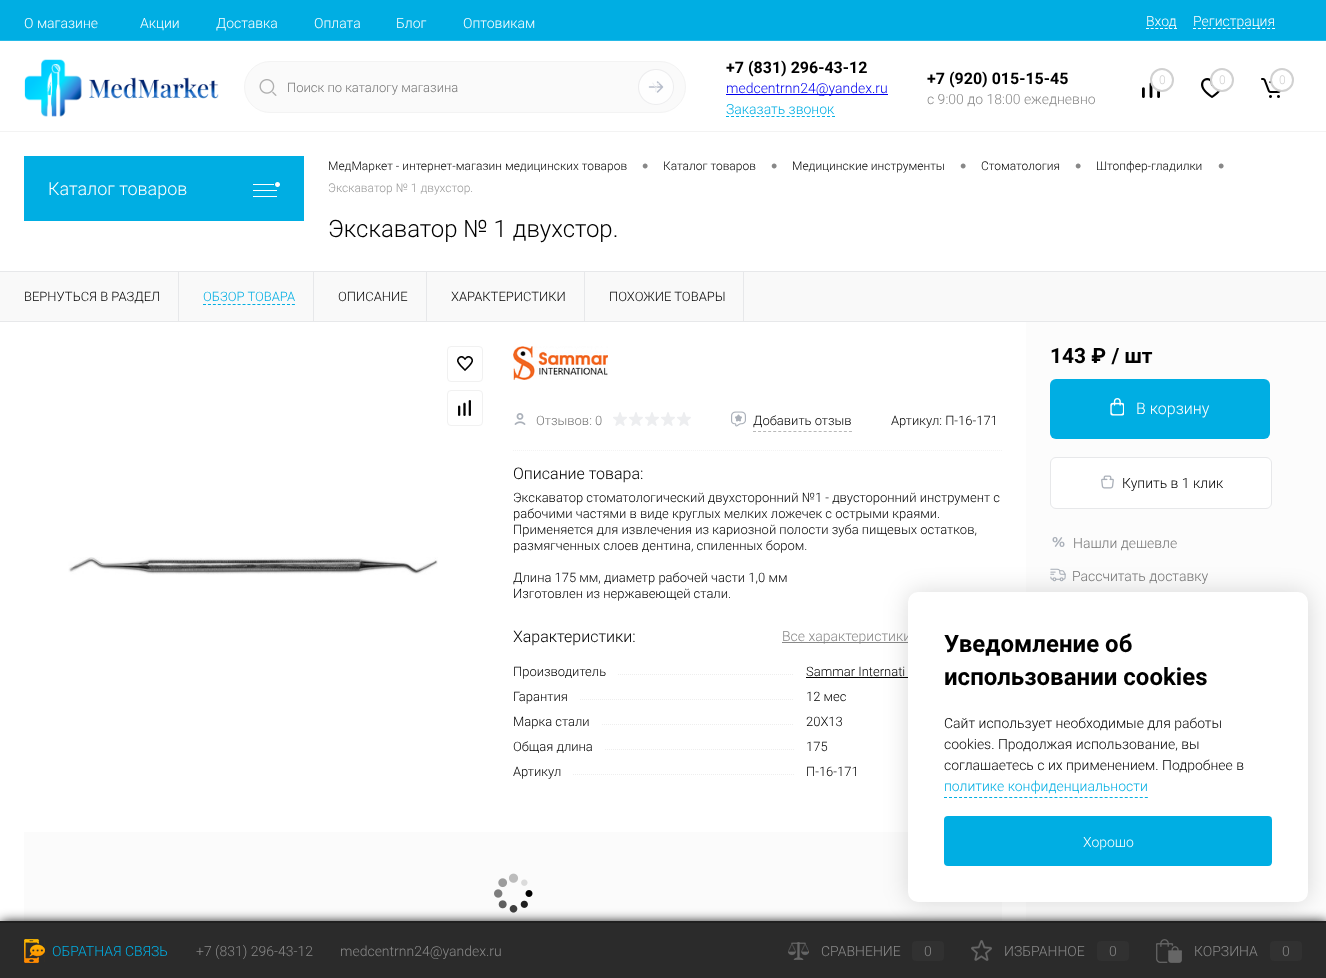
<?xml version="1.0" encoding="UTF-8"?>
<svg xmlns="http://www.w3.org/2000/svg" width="1326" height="978">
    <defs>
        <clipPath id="clip1"><rect x="513" y="659" width="281" height="25"/></clipPath>
        <clipPath id="clip2"><rect x="513" y="684" width="281" height="25"/></clipPath>
        <clipPath id="clip3"><rect x="513" y="709" width="281" height="25"/></clipPath>
        <clipPath id="clip4"><rect x="513" y="734" width="281" height="25"/></clipPath>
        <clipPath id="clip5"><rect x="513" y="759" width="281" height="25"/></clipPath>
        <filter id="blur1" x="-50%" y="-200%" width="200%" height="500%"><feGaussianBlur stdDeviation="6"/></filter>
        <filter id="blur2" x="-50%" y="-200%" width="200%" height="500%"><feGaussianBlur stdDeviation="12.5"/></filter>
    </defs>
    <rect width="100%" height="100%" fill="#FFFFFF"/>
    <rect x="0" y="0" width="1326" height="40" fill="#00AEE3"/>
    <rect x="0" y="40" width="1326" height="1" fill="#26BAE7"/>
    <text x="24" y="28" font-family="Roboto" font-size="14" font-weight="300" fill="#FFFFFF">О магазине</text>
    <text x="140" y="28" font-family="Roboto" font-size="14" font-weight="300" fill="#FFFFFF">Акции</text>
    <text x="216" y="28" font-family="Roboto" font-size="14" font-weight="300" fill="#FFFFFF">Доставка</text>
    <text x="314" y="28" font-family="Roboto" font-size="14" font-weight="300" fill="#FFFFFF">Оплата</text>
    <text x="396" y="28" font-family="Roboto" font-size="14" font-weight="300" fill="#FFFFFF">Блог</text>
    <text x="463" y="28" font-family="Roboto" font-size="14" font-weight="300" fill="#FFFFFF">Оптовикам</text>
    <text x="1146" y="26" font-family="Roboto" font-size="14" font-weight="300" fill="#FFFFFF">Вход</text>
    <path d="M 1146 28.5 H 1177" fill="none" stroke="#FFFFFF" stroke-dasharray="3 1.67"/>
    <text x="1193" y="26" font-family="Roboto" font-size="14" font-weight="300" fill="#FFFFFF">Регистрация</text>
    <path d="M 1193 28.5 H 1275" fill="none" stroke="#FFFFFF" stroke-dasharray="3 1.94"/>
    <rect x="0" y="131" width="1326" height="1" fill="#F3F3F3"/>
    <image x="24" y="59" width="195" height="58" href="img_01.png"/>
    <text x="726" y="73" font-family="Roboto" font-size="16" font-weight="700" fill="#000000">+7 (831) 296-43-12</text>
    <rect x="726" y="94" width="162" height="1" fill="#0000EE"/>
    <text x="726" y="93" font-family="Roboto" font-size="14" font-weight="300" fill="#0000EE">medcentrnn24@yandex.ru</text>
    <text x="726" y="114" font-family="Roboto" font-size="14" font-weight="300" fill="#00AEE3">Заказать звонок</text>
    <path d="M 726 116.5 H 835" fill="none" stroke="#00AEE3" stroke-dasharray="3 2.05"/>
    <text x="927" y="84" font-family="Roboto" font-size="16" font-weight="700" fill="#000000">+7 (920) 015-15-45</text>
    <text x="927" y="104" font-family="Roboto" font-size="14" font-weight="300" fill="#888888">с 9:00 до 18:00 ежедневно</text>
    <image x="1142" y="82" width="18" height="16" href="img_02.png"/>
    <circle cx="1162" cy="80" r="11" fill="#FFFFFF" stroke="#D1D1D1" stroke-width="2"/>
    <text x="1159" y="84" font-family="Roboto" font-size="12" font-weight="300" fill="#D1D1D1">0</text>
    <image x="1201" y="78" width="20" height="20" href="img_03.png"/>
    <circle cx="1222" cy="80" r="11" fill="#FFFFFF" stroke="#D1D1D1" stroke-width="2"/>
    <text x="1219" y="84" font-family="Roboto" font-size="12" font-weight="300" fill="#D1D1D1">0</text>
    <image x="1261" y="78" width="20" height="20" href="img_04.png"/>
    <circle cx="1282" cy="80" r="11" fill="#FFFFFF" stroke="#D1D1D1" stroke-width="2"/>
    <text x="1279" y="84" font-family="Roboto" font-size="12" font-weight="300" fill="#D1D1D1">0</text>
    <rect x="244.5" y="61.5" width="441" height="51" rx="25.5" fill="#FAFAFA" stroke="#F3F3F3"/>
    <image x="259" y="79" width="18" height="17" href="img_05.png"/>
    <text x="287" y="92" font-family="Roboto" font-size="13" font-weight="300" fill="#757575">Поиск по каталогу магазина</text>
    <image x="638" y="69" width="36" height="36" href="img_06.png"/>
    <text x="652" y="92" font-family="Roboto" font-size="13" font-weight="300" fill="#EAECEF">Y</text>
    <rect x="24" y="156" width="280" height="65" fill="#00AEE3"/>
    <text x="48" y="195" font-family="Roboto" font-size="18" font-weight="300" fill="#FFFFFF">Каталог товаров</text>
    <image x="253" y="182" width="27" height="15" href="img_07.png"/>
    <text x="328" y="170" font-family="Roboto" font-size="12" font-weight="300" fill="#000000">МедМаркет - интернет-магазин медицинских товаров</text>
    <text x="642" y="172" font-family="Liberation Sans" font-size="18" fill="#888888">•</text>
    <text x="663" y="170" font-family="Roboto" font-size="12" font-weight="300" fill="#000000">Каталог товаров</text>
    <text x="771" y="172" font-family="Liberation Sans" font-size="18" fill="#888888">•</text>
    <text x="792" y="170" font-family="Roboto" font-size="12" font-weight="300" fill="#000000">Медицинские инструменты</text>
    <text x="960" y="172" font-family="Liberation Sans" font-size="18" fill="#888888">•</text>
    <text x="981" y="170" font-family="Roboto" font-size="12" font-weight="300" fill="#000000">Стоматология</text>
    <text x="1075" y="172" font-family="Liberation Sans" font-size="18" fill="#888888">•</text>
    <text x="1096" y="170" font-family="Roboto" font-size="12" font-weight="300" fill="#000000">Штопфер-гладилки</text>
    <text x="1218" y="172" font-family="Liberation Sans" font-size="18" fill="#888888">•</text>
    <text x="328" y="192" font-family="Roboto" font-size="12" font-weight="300" fill="#999999">Экскаватор № 1 двухстор.</text>
    <text x="328" y="237" font-family="Roboto" font-size="24" font-weight="300" fill="#000000">Экскаватор № 1 двухстор.</text>
    <rect x="0" y="271" width="1326" height="1" fill="#E7E8EA"/>
    <rect x="0" y="272" width="1326" height="49" fill="#F9F9F9"/>
    <rect x="0" y="321" width="1326" height="1" fill="#E7E8EA"/>
    <rect x="178" y="272" width="1" height="49" fill="#E7E8EA"/>
    <text x="24" y="301" font-family="Roboto" font-size="13" font-weight="300" fill="#000000">ВЕРНУТЬСЯ В РАЗДЕЛ</text>
    <rect x="313" y="272" width="1" height="49" fill="#E7E8EA"/>
    <text x="203" y="301" font-family="Roboto" font-size="13" font-weight="300" fill="#00AEE3">ОБЗОР ТОВАРА</text>
    <path d="M 203 304.5 H 295" fill="none" stroke="#00AEE3" stroke-dasharray="3 1.94"/>
    <rect x="426" y="272" width="1" height="49" fill="#E7E8EA"/>
    <text x="338" y="301" font-family="Roboto" font-size="13" font-weight="300" fill="#000000">ОПИСАНИЕ</text>
    <rect x="584" y="272" width="1" height="49" fill="#E7E8EA"/>
    <text x="451" y="301" font-family="Roboto" font-size="13" font-weight="300" fill="#000000">ХАРАКТЕРИСТИКИ</text>
    <rect x="743" y="272" width="1" height="49" fill="#E7E8EA"/>
    <text x="609" y="301" font-family="Roboto" font-size="13" font-weight="300" fill="#000000">ПОХОЖИЕ ТОВАРЫ</text>
    <rect x="447.5" y="346.5" width="35" height="35" rx="3.5" fill="none" stroke="#F1F1F1"/>
    <image x="457" y="356" width="16" height="15" href="img_08.png"/>
    <rect x="447.5" y="390.5" width="35" height="35" rx="3.5" fill="none" stroke="#F1F1F1"/>
    <image x="458" y="400" width="13" height="16" href="img_09.png"/>
    <image x="68" y="557" width="370" height="18" href="img_10.png"/>
    <image x="513" y="346" width="95" height="34" href="img_11.png"/>
    <path d="M 513 450.5 H 1002" fill="none" stroke="#F3F3F3" stroke-dasharray="1 1"/>
    <image x="514" y="413" width="12" height="12" href="img_12.png"/>
    <text x="536" y="425" font-family="Roboto" font-size="13" font-weight="300" fill="#757575">Отзывов: 0</text>
    <image x="613" y="412" width="78" height="14" href="img_13.png"/>
    <image x="731" y="411" width="15" height="16" href="img_14.png"/>
    <path d="M 753 431.5 H 852" fill="none" stroke="#B9B9B9" stroke-dasharray="3 2.05"/>
    <text x="753" y="425" font-family="Roboto" font-size="13" font-weight="300" fill="#000000">Добавить отзыв</text>
    <text x="891" y="425" font-family="Roboto" font-size="13" font-weight="300" fill="#000000">Артикул: П-16-171</text>
    <text x="513" y="479" font-family="Roboto" font-size="16" font-weight="300" fill="#000000">Описание товара:</text>
    <text font-family="Roboto" font-size="13" font-weight="300" fill="#000000">
        <tspan x="513" y="502">Экскаватор стоматологический двухсторонний №1 - двусторонний инструмент с</tspan>
        <tspan x="513" y="518">рабочими частями в виде круглых мелких ложечек с острыми краями.</tspan>
        <tspan x="513" y="534">Применяется для извлечения из кариозной полости зуба пищевых остатков,</tspan>
        <tspan x="513" y="550">размягченных слоев дентина, спиленных бором.</tspan>
    </text>
    <text font-family="Roboto" font-size="13" font-weight="300" fill="#000000">
        <tspan x="513" y="582">Длина 175 мм, диаметр рабочей части 1,0 мм</tspan>
        <tspan x="513" y="598">Изготовлен из нержавеющей стали.</tspan>
    </text>
    <text x="513" y="642" font-family="Roboto" font-size="16" font-weight="300" fill="#000000">Характеристики:</text>
    <rect x="782" y="642" width="129" height="1" fill="#888888"/>
    <text x="782" y="641" font-family="Roboto" font-size="14" font-weight="300" fill="#888888">Все характеристики</text>
    <text x="513" y="676" font-family="Roboto" font-size="13" font-weight="300" fill="#000000">Производитель</text>
    <g clip-path="url(#clip1)">
        <path d="M 618 674.5 H 900" fill="none" stroke="#EEEEEE" stroke-dasharray="1 1"/>
    </g>
    <text x="806" y="676" font-family="Roboto" font-size="13" font-weight="300" fill="#000000">Sammar Internati</text>
    <rect x="806" y="677" width="102" height="1" fill="#000000"/>
    <text x="513" y="701" font-family="Roboto" font-size="13" font-weight="300" fill="#000000">Гарантия</text>
    <g clip-path="url(#clip2)">
        <path d="M 580 699.5 H 861" fill="none" stroke="#EEEEEE" stroke-dasharray="1 1"/>
    </g>
    <text x="806" y="701" font-family="Roboto" font-size="13" font-weight="300" fill="#000000">12 мес</text>
    <text x="513" y="726" font-family="Roboto" font-size="13" font-weight="300" fill="#000000">Марка стали</text>
    <g clip-path="url(#clip3)">
        <path d="M 602 724.5 H 883" fill="none" stroke="#EEEEEE" stroke-dasharray="1 1"/>
    </g>
    <text x="806" y="726" font-family="Roboto" font-size="13" font-weight="300" fill="#000000">20Х13</text>
    <text x="513" y="751" font-family="Roboto" font-size="13" font-weight="300" fill="#000000">Общая длина</text>
    <g clip-path="url(#clip4)">
        <path d="M 605 749.5 H 886" fill="none" stroke="#EEEEEE" stroke-dasharray="1 1"/>
    </g>
    <text x="806" y="751" font-family="Roboto" font-size="13" font-weight="300" fill="#000000">175</text>
    <text x="513" y="776" font-family="Roboto" font-size="13" font-weight="300" fill="#000000">Артикул</text>
    <g clip-path="url(#clip5)">
        <path d="M 573 774.5 H 855" fill="none" stroke="#EEEEEE" stroke-dasharray="1 1"/>
    </g>
    <text x="806" y="776" font-family="Roboto" font-size="13" font-weight="300" fill="#000000">П-16-171</text>
    <rect x="24" y="832" width="978" height="89" fill="#FBFBFB"/>
    <image x="494" y="873" width="39" height="40" href="img_15.png"/>
    <rect x="1026" y="322" width="300" height="599" fill="#FCFCFC"/>
    <text x="1050" y="363" font-family="Roboto" font-size="21" font-weight="700" fill="#000000">143 ₽ / шт</text>
    <rect x="1050" y="379" width="220" height="60" rx="6" fill="#00AEE3"/>
    <image x="1110" y="398" width="14" height="18" href="img_16.png"/>
    <text x="1136" y="414" font-family="Roboto" font-size="16" font-weight="300" fill="#FFFFFF">В корзину</text>
    <rect x="1050.5" y="457.5" width="221" height="51" rx="5.5" fill="#FFFFFF" stroke="#E7E8EA"/>
    <image x="1101" y="475" width="13" height="14" href="img_17.png"/>
    <text x="1122" y="488" font-family="Roboto" font-size="14" font-weight="300" fill="#000000">Купить в 1 клик</text>
    <image x="1052" y="537" width="13" height="10" href="img_18.png"/>
    <text x="1073" y="548" font-family="Roboto" font-size="14" font-weight="300" fill="#757575">Нашли дешевле</text>
    <image x="1050" y="568" width="16" height="14" href="img_19.png"/>
    <text x="1072" y="581" font-family="Roboto" font-size="14" font-weight="300" fill="#757575">Рассчитать доставку</text>
    <rect x="1" y="922" width="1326" height="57" fill="#000000" filter="url(#blur1)"/>
    <rect x="0" y="923" width="1326" height="55" fill="#2B2B2B"/>
    <rect x="0" y="921" width="1326" height="2" fill="#202020"/>
    <image x="24" y="939" width="21" height="24" href="img_20.png"/>
    <text x="52" y="956" font-family="Roboto" font-size="14" font-weight="300" fill="#00AEE3">ОБРАТНАЯ СВЯЗЬ</text>
    <text x="196" y="956" font-family="Roboto" font-size="14" font-weight="300" fill="#888888">+7 (831) 296-43-12</text>
    <text x="340" y="956" font-family="Roboto" font-size="14" font-weight="300" fill="#888888">medcentrnn24@yandex.ru</text>
    <image x="788" y="942" width="21" height="18" href="img_21.png"/>
    <text x="821" y="956" font-family="Roboto" font-size="14" font-weight="300" fill="#888888">СРАВНЕНИЕ</text>
    <rect x="912" y="941" width="32" height="20" rx="4" fill="#313131"/>
    <text x="924" y="956" font-family="Roboto" font-size="14" font-weight="300" fill="#888888">0</text>
    <image x="971" y="940" width="21" height="21" href="img_22.png"/>
    <text x="1004" y="956" font-family="Roboto" font-size="14" font-weight="300" fill="#888888">ИЗБРАННОЕ</text>
    <rect x="1097" y="941" width="32" height="20" rx="4" fill="#313131"/>
    <text x="1109" y="956" font-family="Roboto" font-size="14" font-weight="300" fill="#888888">0</text>
    <image x="1156" y="939" width="26" height="24" href="img_23.png"/>
    <text x="1194" y="956" font-family="Roboto" font-size="14" font-weight="300" fill="#888888">КОРЗИНА</text>
    <rect x="1270" y="941" width="32" height="20" rx="4" fill="#313131"/>
    <text x="1282" y="956" font-family="Roboto" font-size="14" font-weight="300" fill="#888888">0</text>
    <rect x="908" y="592" width="400" height="310" rx="10" fill="#000000" fill-opacity="0.15" filter="url(#blur2)"/>
    <rect x="908" y="592" width="400" height="310" rx="10" fill="#FFFFFF"/>
    <text font-family="Roboto" font-size="24" font-weight="700" fill="#000000">
        <tspan x="944" y="652">Уведомление об</tspan>
        <tspan x="944" y="685">использовании cookies</tspan>
    </text>
    <text font-family="Roboto" font-size="14" font-weight="300" fill="#000000">
        <tspan x="944" y="728">Сайт использует необходимые для работы</tspan>
        <tspan x="944" y="749">cookies. Продолжая использование, вы</tspan>
        <tspan x="944" y="770">соглашаетесь с их применением. Подробнее в</tspan>
    </text>
    <path d="M 944 797.5 H 1148" fill="none" stroke="#00AEE3" stroke-dasharray="3 2.02"/>
    <text x="944" y="791" font-family="Roboto" font-size="14" font-weight="300" fill="#00AEE3">политике конфиденциальности</text>
    <rect x="944" y="816" width="328" height="50" rx="4" fill="#00AEE3"/>
    <text x="1083" y="847" font-family="Roboto" font-size="14" font-weight="300" fill="#FFFFFF">Хорошо</text>
</svg>
